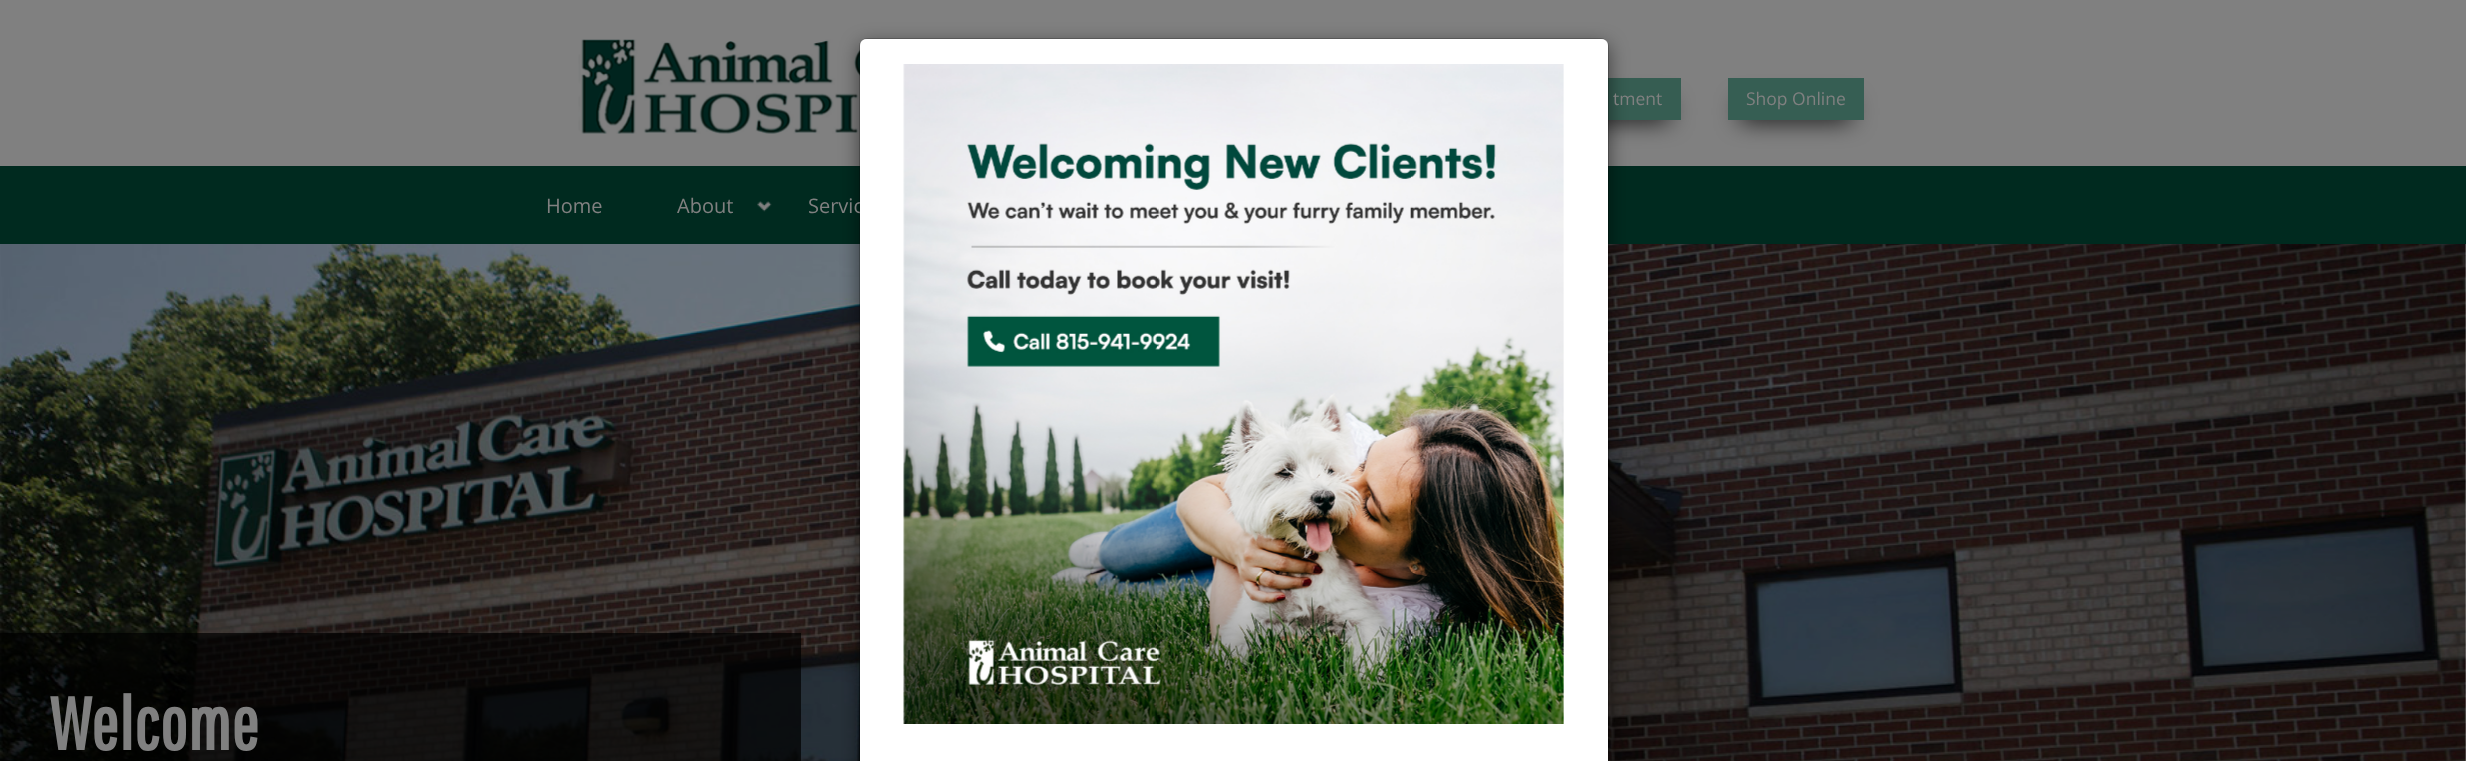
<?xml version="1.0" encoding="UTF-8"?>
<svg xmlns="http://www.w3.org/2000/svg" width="2466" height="761">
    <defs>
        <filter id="blur1" x="-50%" y="-200%" width="200%" height="500%"><feGaussianBlur stdDeviation="12.5"/></filter>
        <filter id="blur2" x="-50%" y="-200%" width="200%" height="500%"><feGaussianBlur stdDeviation="9.5"/></filter>
        <clipPath id="clip1"><path d="M 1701 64 H 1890 V 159 H 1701 Z M 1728 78 H 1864 V 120 H 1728 Z" clip-rule="evenodd"/></clipPath>
    </defs>
    <rect width="100%" height="100%" fill="#FFFFFF"/>
    <rect x="0" y="0" width="2466" height="166" fill="#808080"/>
    <image x="578" y="39" width="288" height="95" href="img_02.png"/>
    <rect x="1478" y="103" width="191" height="17" fill="#000000" filter="url(#blur1)"/>
    <rect x="1608" y="78" width="73" height="42" fill="#365D52"/>
    <rect x="0" y="166" width="2466" height="78" fill="#002A1F"/>
    <image x="0" y="244" width="2466" height="517" href="img_04.png"/>
    <rect x="859" y="44" width="750" height="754" rx="8" fill="#000000" fill-opacity="0.5" filter="url(#blur2)"/>
    <text x="808" y="213" font-family="Open Sans" font-size="20" fill="#808080">Servic</text>
    <path d="M 866 39 H 1602 C 1605.5 39 1608 41.5 1608 45 V 761 H 860 V 45 C 860 41.5 862.5 39 866 39 Z" fill="#FFFFFF"/>
    <rect x="859.5" y="38.5" width="749" height="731" rx="7.5" fill="none" stroke="#000000" stroke-opacity="0.2"/>
    <image x="903" y="64" width="661" height="660" href="img_01.png"/>
    <text x="1613" y="105" font-family="Open Sans" font-size="17.5" fill="#808080">tment</text>
    <g clip-path="url(#clip1)">
        <rect x="1740" y="103" width="111" height="17" fill="#000000" filter="url(#blur1)"/>
    </g>
    <rect x="1728" y="78" width="136" height="42" fill="#084837" fill-opacity="0.62"/>
    <text x="1746" y="105" font-family="Open Sans" font-size="17.5" fill="#808080">Shop Online</text>
    <text x="546" y="213" font-family="Open Sans" font-size="20" fill="#808080">Home</text>
    <image x="757" y="201" width="15" height="11" href="img_03.png"/>
    <text x="677" y="213" font-family="Open Sans" font-size="20" fill="#808080">About</text>
    <rect x="0" y="633" width="801" height="128" fill="#000000" fill-opacity="0.7"/>
    <text x="49" y="750" font-family="Pathway Gothic One" font-size="74" font-weight="700" fill="#808080">Welcome</text>
</svg>
